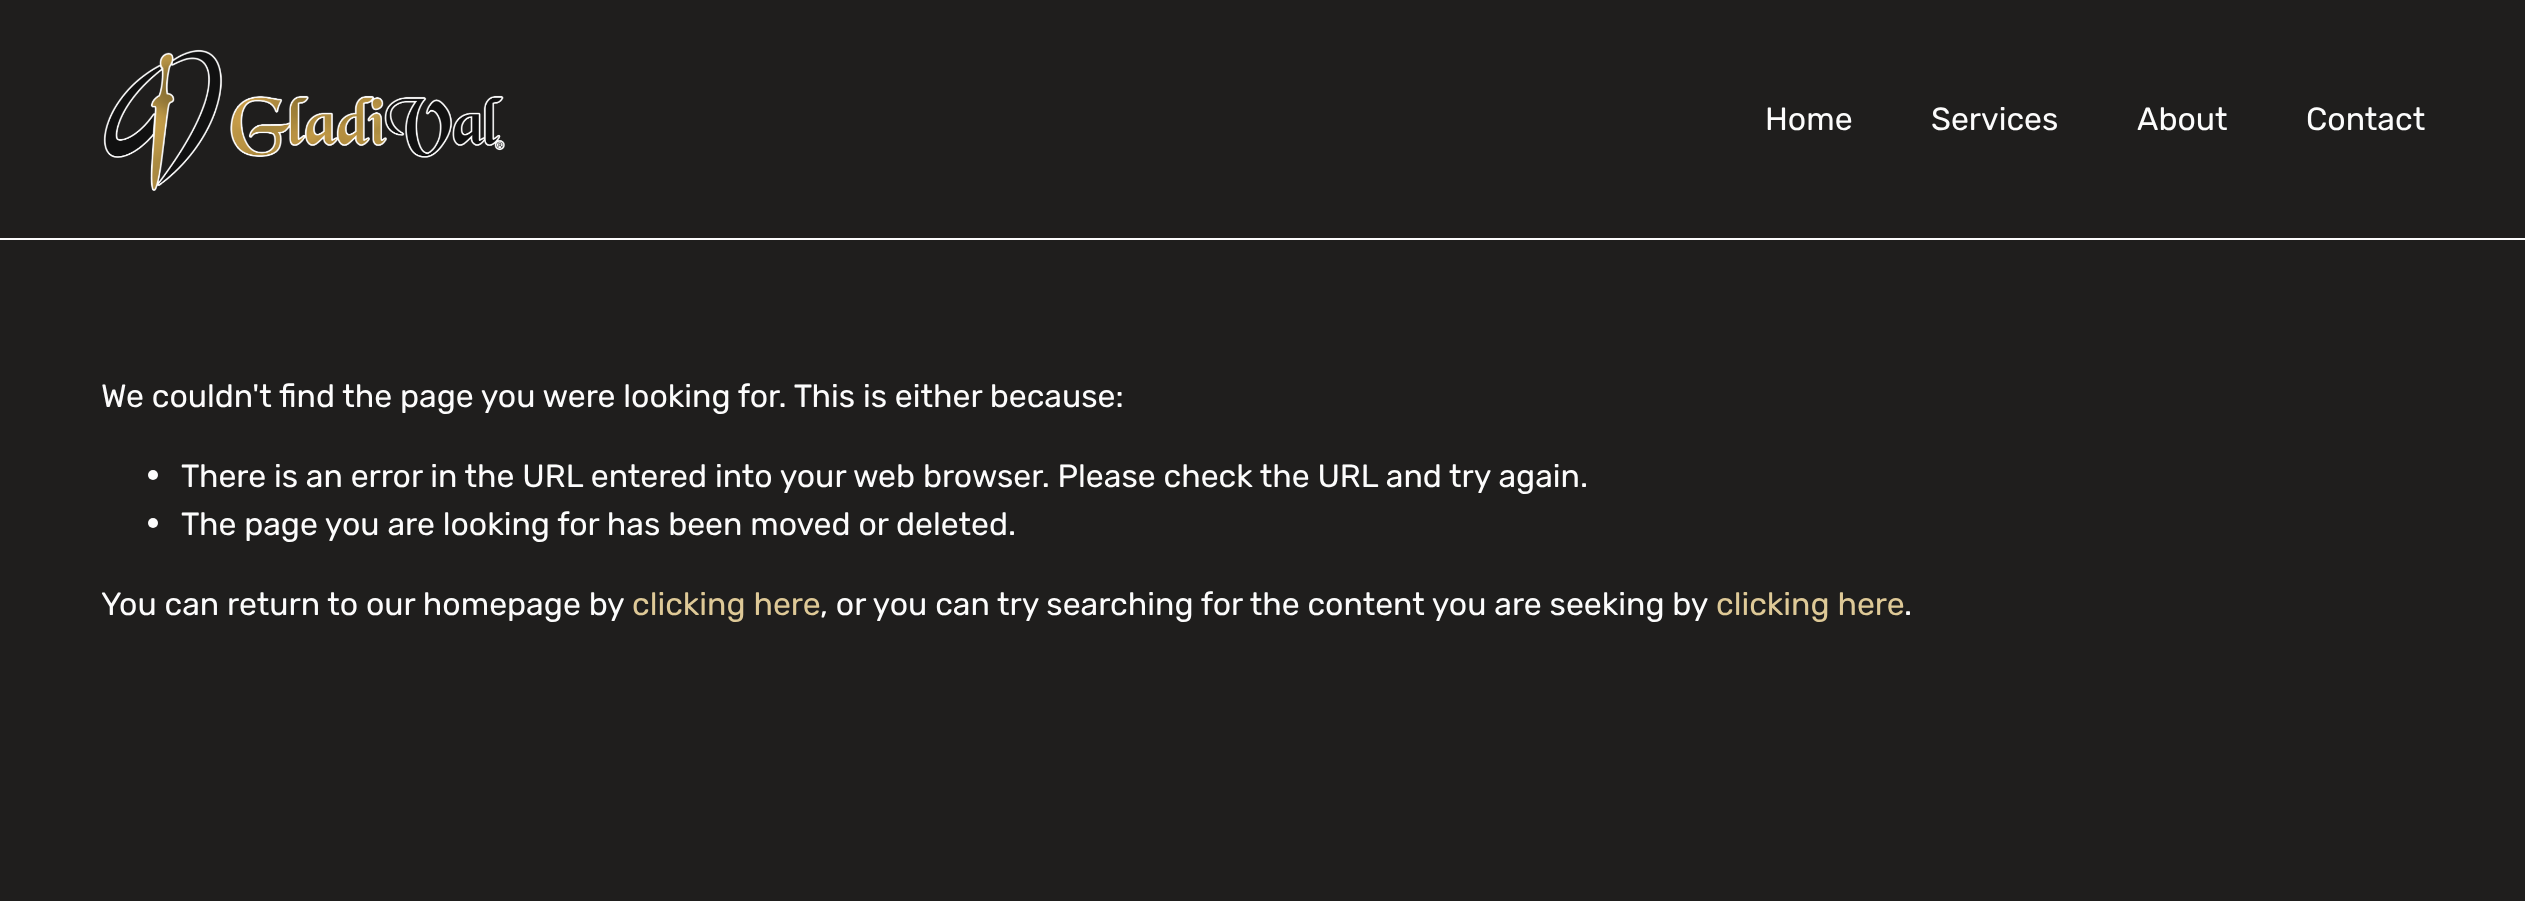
<?xml version="1.0" encoding="UTF-8"?>
<svg xmlns="http://www.w3.org/2000/svg" width="2525" height="901">
    <rect width="100%" height="100%" fill="#1F1E1D"/>
    <image x="103" y="49" width="402" height="142" href="img_01.png"/>
    <text x="1765" y="130" font-family="Rubik" font-size="32" fill="#FCFCFC">Home</text>
    <text x="1931" y="130" font-family="Rubik" font-size="32" fill="#FCFCFC">Services</text>
    <text x="2137" y="130" font-family="Rubik" font-size="32" fill="#FCFCFC">About</text>
    <text x="2306" y="130" font-family="Rubik" font-size="32" fill="#FCFCFC">Contact</text>
    <rect x="0" y="238" width="2525" height="2" fill="#FCFCFC"/>
    <text x="101" y="407" font-family="Rubik" font-size="32" fill="#FCFCFC">We couldn't find the page you were looking for. This is either because:</text>
    <circle cx="153" cy="475" r="5" fill="#FCFCFC"/>
    <text x="181" y="487" font-family="Rubik" font-size="32" fill="#FCFCFC">There is an error in the URL entered into your web browser. Please check the URL and try again.</text>
    <circle cx="153" cy="523" r="5" fill="#FCFCFC"/>
    <text x="181" y="535" font-family="Rubik" font-size="32" fill="#FCFCFC">The page you are looking for has been moved or deleted.</text>
    <text x="101" y="615" font-family="Rubik" font-size="32" fill="#FCFCFC">You can return to our homepage by</text>
    <text x="632" y="615" font-family="Rubik" font-size="32" fill="#DEC997">clicking here</text>
    <text x="820" y="615" font-family="Rubik" font-size="32" fill="#FCFCFC">, or you can try searching for the content you are seeking by</text>
    <text x="1716" y="615" font-family="Rubik" font-size="32" fill="#DEC997">clicking here</text>
    <text x="1904" y="615" font-family="Rubik" font-size="32" fill="#FCFCFC">.</text>
</svg>
